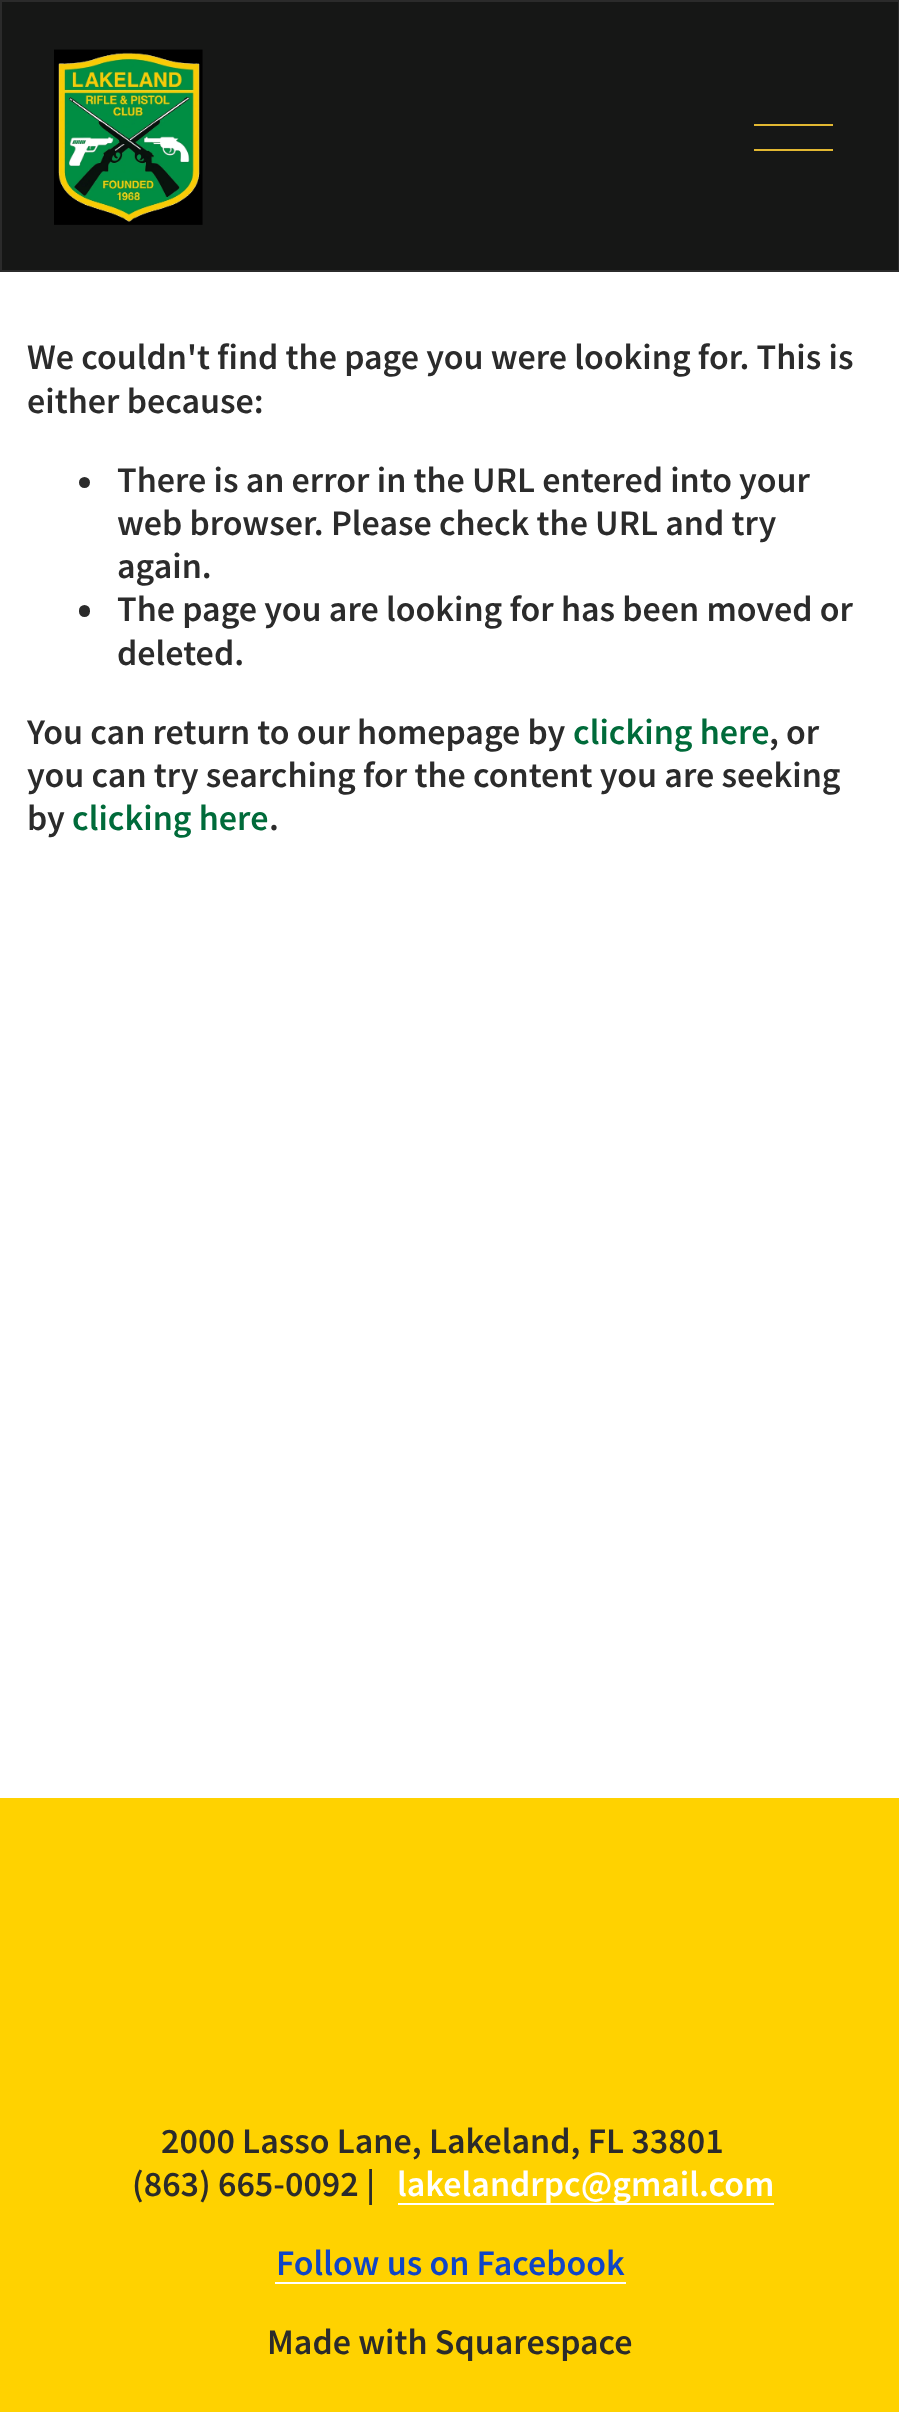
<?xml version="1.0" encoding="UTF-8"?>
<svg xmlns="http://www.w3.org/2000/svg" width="899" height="2412">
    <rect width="100%" height="100%" fill="#FFFFFF"/>
    <rect x="1" y="1" width="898" height="270" fill="#161716" stroke="#2B2B2B" stroke-width="2"/>
    <image x="54" y="49" width="149" height="176" href="img_01.png"/>
    <rect x="754" y="124" width="79" height="2" fill="#E2B832"/>
    <rect x="754" y="149" width="79" height="2" fill="#E2B832"/>
    <text font-family="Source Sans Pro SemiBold" font-size="36" font-weight="600" fill="#2B2B2B">
        <tspan x="27" y="369">We couldn't find the page you were looking for. This is</tspan>
        <tspan x="27" y="413">either because:</tspan>
    </text>
    <circle cx="84.5" cy="482.5" r="5.5" fill="#2B2B2B"/>
    <text font-family="Source Sans Pro SemiBold" font-size="36" font-weight="600" fill="#2B2B2B">
        <tspan x="117" y="492">There is an error in the URL entered into your</tspan>
        <tspan x="117" y="535">web browser. Please check the URL and try</tspan>
        <tspan x="117" y="578">again.</tspan>
    </text>
    <rect x="79" y="605" width="11" height="12" rx="5.5" fill="#2B2B2B"/>
    <text font-family="Source Sans Pro SemiBold" font-size="36" font-weight="600" fill="#2B2B2B">
        <tspan x="117" y="621">The page you are looking for has been moved or</tspan>
        <tspan x="117" y="665">deleted.</tspan>
    </text>
    <text x="27" y="744" font-family="Source Sans Pro SemiBold" font-size="36" font-weight="600" fill="#2B2B2B">You can return to our homepage by</text>
    <text x="573" y="744" font-family="Source Sans Pro SemiBold" font-size="36" font-weight="600" fill="#006B3A">clicking here</text>
    <text x="769" y="744" font-family="Source Sans Pro SemiBold" font-size="36" font-weight="600" fill="#2B2B2B">, or</text>
    <text font-family="Source Sans Pro SemiBold" font-size="36" font-weight="600" fill="#2B2B2B">
        <tspan x="27" y="787">you can try searching for the content you are seeking</tspan>
        <tspan x="27" y="830">by</tspan>
    </text>
    <text x="72" y="830" font-family="Source Sans Pro SemiBold" font-size="36" font-weight="600" fill="#006B3A">clicking here</text>
    <text x="269" y="830" font-family="Source Sans Pro SemiBold" font-size="36" font-weight="600" fill="#2B2B2B">.</text>
    <rect x="0" y="1798" width="899" height="614" fill="#FFD200"/>
    <text x="161" y="2153" font-family="Source Sans Pro SemiBold" font-size="36" font-weight="600" fill="#2B2B2B">2000 Lasso Lane, Lakeland, FL 33801</text>
    <text x="132" y="2196" font-family="Source Sans Pro SemiBold" font-size="36" font-weight="600" fill="#2B2B2B">(863) 665-0092 |</text>
    <rect x="398" y="2203" width="376" height="2" fill="#FFFFFF"/>
    <text x="397" y="2196" font-family="Source Sans Pro SemiBold" font-size="36" font-weight="600" fill="#FFFFFF">lakelandrpc@gmail.com</text>
    <text x="276" y="2275" font-family="Source Sans Pro SemiBold" font-size="36" font-weight="600" fill="#1045C6">Follow us on Facebook</text>
    <rect x="275" y="2282" width="351" height="2" fill="#FFFFFF"/>
    <text x="267" y="2354" font-family="Source Sans Pro SemiBold" font-size="36" font-weight="600" fill="#2B2B2B">Made with Squarespace</text>
</svg>
